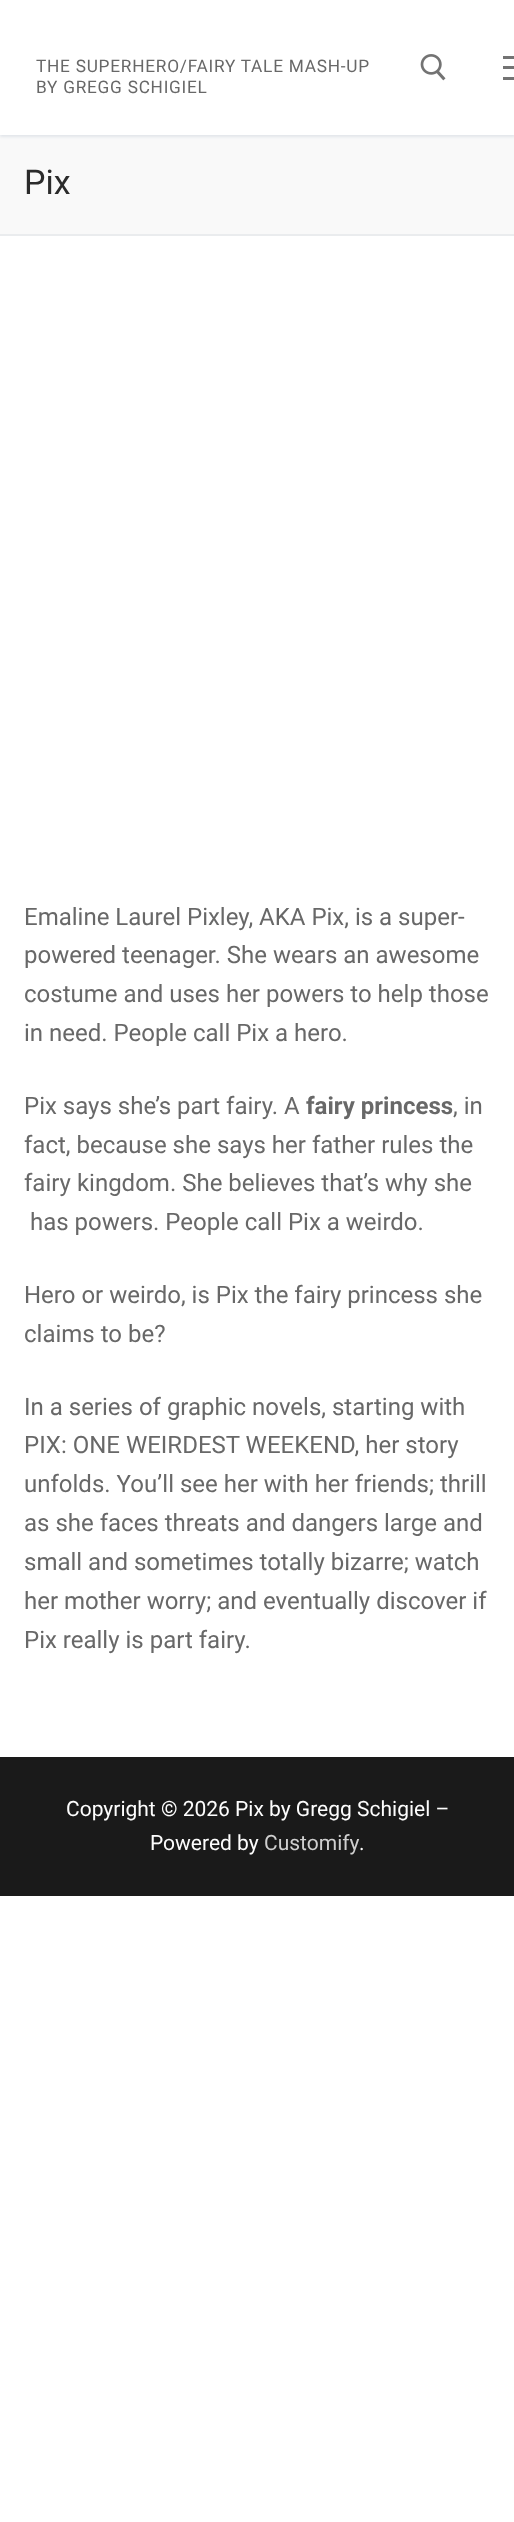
<?xml version="1.0" encoding="UTF-8"?>
<svg xmlns="http://www.w3.org/2000/svg" width="514" height="2522">
    <defs>
        <clipPath id="clip1"><rect x="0" y="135" width="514" height="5"/></clipPath>
        <filter id="blur1" x="-50%" y="-200%" width="200%" height="500%"><feGaussianBlur stdDeviation="1.5"/></filter>
    </defs>
    <rect width="100%" height="100%" fill="#FFFFFF"/>
    <rect x="0" y="135" width="514" height="99" fill="#F9F9F9"/>
    <g clip-path="url(#clip1)">
        <rect x="0" y="2" width="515" height="135" fill="#E1E5EA" filter="url(#blur1)"/>
    </g>
    <text font-family="Roboto" font-size="17.25" letter-spacing="0.75" fill="#686868">
        <tspan x="36" y="72">THE SUPERHERO/FAIRY TALE MASH-UP</tspan>
        <tspan x="36" y="93">BY GREGG SCHIGIEL</tspan>
    </text>
    <image x="420" y="54" width="26" height="27" href="img_01.png"/>
    <rect x="503" y="66" width="11" height="3" fill="#737373"/>
    <rect x="503" y="56" width="11" height="3" fill="#737373"/>
    <rect x="503" y="77" width="11" height="3" fill="#737373"/>
    <rect x="0" y="234" width="514" height="2" fill="#EAECEE"/>
    <text x="24" y="194" font-family="Roboto" font-size="34" fill="#2B2B2B">Pix</text>
    <text font-family="Roboto" font-size="24" fill="#686868">
        <tspan x="24" y="925">Emaline Laurel Pixley, AKA Pix, is a super-</tspan>
        <tspan x="24" y="963">powered teenager. She wears an awesome</tspan>
        <tspan x="24" y="1002">costume and uses her powers to help those</tspan>
        <tspan x="24" y="1041">in need. People call Pix a hero.</tspan>
    </text>
    <text x="24" y="1114" font-family="Roboto" font-size="24" fill="#686868">Pix says she’s part fairy. A</text>
    <text x="306" y="1114" font-family="Roboto" font-size="24" font-weight="700" fill="#686868">fairy princess</text>
    <text x="453" y="1114" font-family="Roboto" font-size="24" fill="#686868">, in</text>
    <text font-family="Roboto" font-size="24" fill="#686868">
        <tspan x="24" y="1153">fact, because she says her father rules the</tspan>
        <tspan x="24" y="1191">fairy kingdom. She believes that’s why she</tspan>
    </text>
    <text x="30" y="1230" font-family="Roboto" font-size="24" fill="#686868">has powers. People call Pix a weirdo.</text>
    <text font-family="Roboto" font-size="24" fill="#686868">
        <tspan x="24" y="1303">Hero or weirdo, is Pix the fairy princess she</tspan>
        <tspan x="24" y="1342">claims to be?</tspan>
    </text>
    <text font-family="Roboto" font-size="24" fill="#686868">
        <tspan x="24" y="1415">In a series of graphic novels, starting with</tspan>
        <tspan x="24" y="1453">PIX: ONE WEIRDEST WEEKEND, her story</tspan>
        <tspan x="24" y="1492">unfolds. You’ll see her with her friends; thrill</tspan>
        <tspan x="24" y="1531">as she faces threats and dangers large and</tspan>
        <tspan x="24" y="1570">small and sometimes totally bizarre; watch</tspan>
        <tspan x="24" y="1609">her mother worry; and eventually discover if</tspan>
        <tspan x="24" y="1648">Pix really is part fairy.</tspan>
    </text>
    <rect x="0" y="1757" width="514" height="139" fill="#1A1A1A"/>
    <text x="66" y="1816" font-family="Roboto" font-size="21" fill="#FDFDFD">Copyright © 2026 Pix by Gregg Schigiel –</text>
    <text x="150" y="1850" font-family="Roboto" font-size="21" fill="#FDFDFD">Powered by</text>
    <text x="264" y="1850" font-family="Roboto" font-size="21" fill="#CFCFCF">Customify</text>
    <text x="359" y="1850" font-family="Roboto" font-size="21" fill="#FDFDFD">.</text>
</svg>
